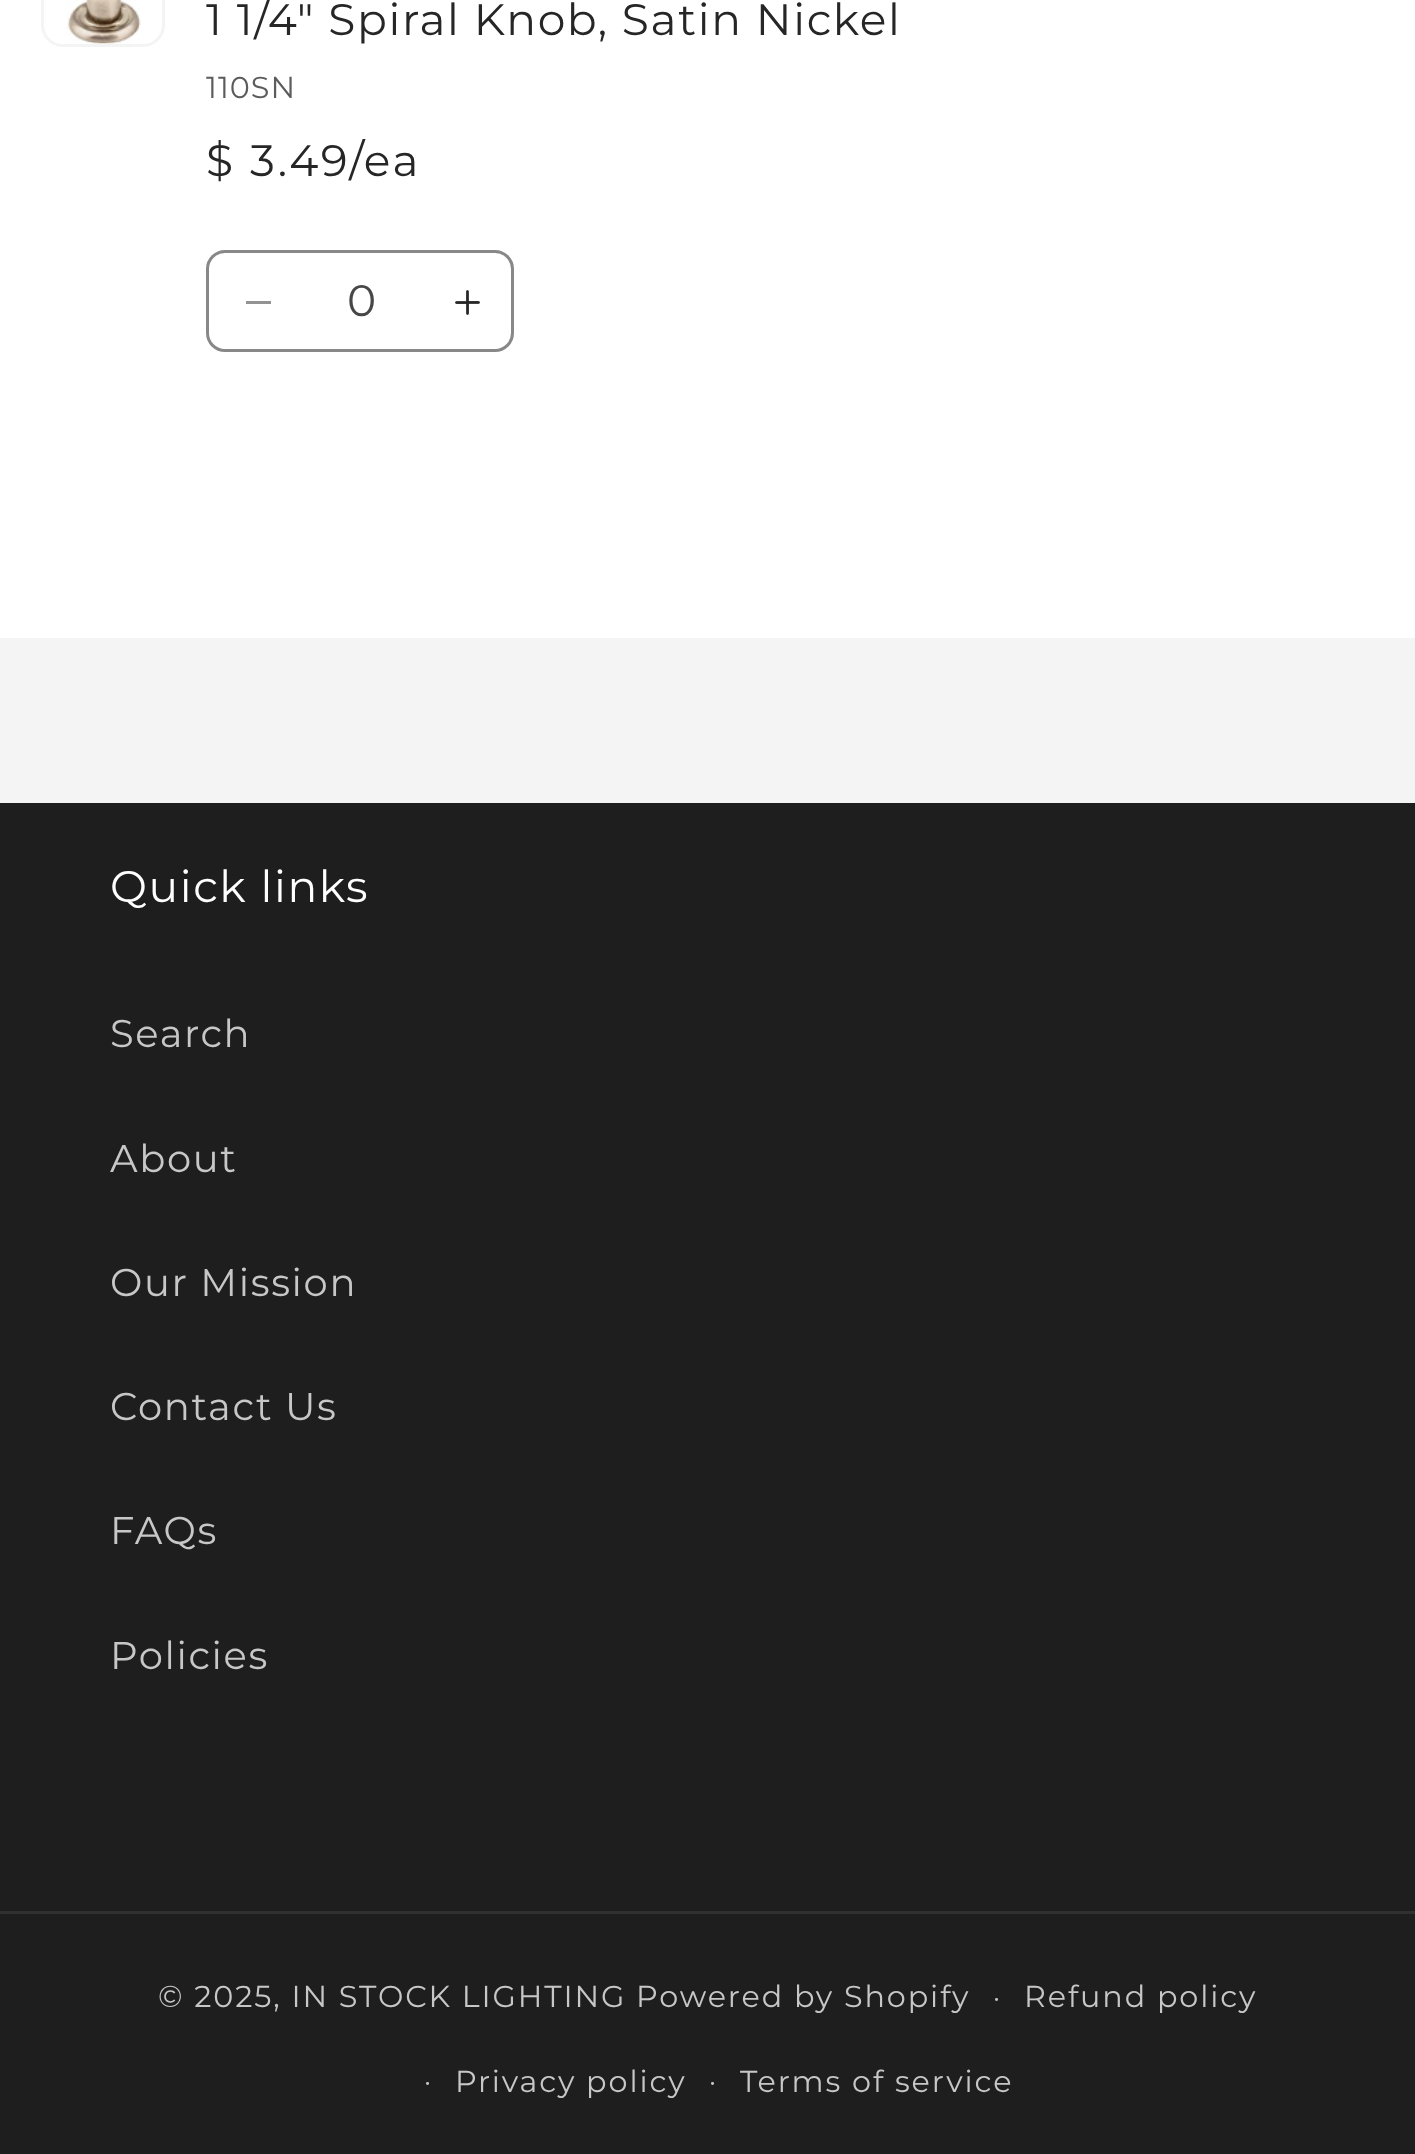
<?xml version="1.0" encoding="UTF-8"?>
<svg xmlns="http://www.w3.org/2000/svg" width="1415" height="2154">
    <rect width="100%" height="100%" fill="#F4F4F4"/>
    <rect x="0" y="0" width="1415" height="638" fill="#FFFFFF"/>
    <rect x="42.5" y="-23.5" width="121" height="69" rx="20.5" fill="none" stroke="#F4F4F4" stroke-width="3"/>
    <image x="66" y="0" width="75" height="44" href="img_01.png"/>
    <text x="206" y="35" font-family="Montserrat" font-size="44" letter-spacing="1.65" fill="#262626">1 1/4" Spiral Knob, Satin Nickel</text>
    <text x="206" y="98" font-family="Montserrat" font-size="30.25" letter-spacing="1" fill="#5C5C5C">110SN</text>
    <text x="206" y="176" font-family="Montserrat" font-size="44" letter-spacing="2.75" fill="#262626">$ 3.49/ea</text>
    <rect x="246" y="301" width="25" height="3" fill="#939393"/>
    <image x="455" y="290" width="25" height="25" href="img_02.png"/>
    <rect x="207.5" y="251.5" width="305" height="99" rx="17.5" fill="none" stroke="#888888" stroke-width="3"/>
    <text x="347" y="316" font-family="Montserrat" font-size="44" fill="#474747">0</text>
    <rect x="0" y="803" width="1415" height="1351" fill="#1E1E1E"/>
    <text x="110" y="902" font-family="Montserrat" font-size="44" letter-spacing="1.65" fill="#FFFFFF">Quick links</text>
    <text x="110" y="1047" font-family="Montserrat" font-size="38.5" letter-spacing="1.65" fill="#C7C7C7">Search</text>
    <text x="110" y="1172" font-family="Montserrat" font-size="38.5" letter-spacing="1.65" fill="#C7C7C7">About</text>
    <text x="110" y="1296" font-family="Montserrat" font-size="38.5" letter-spacing="1.65" fill="#C7C7C7">Our Mission</text>
    <text x="110" y="1420" font-family="Montserrat" font-size="38.5" letter-spacing="1.65" fill="#C7C7C7">Contact Us</text>
    <text x="110" y="1544" font-family="Montserrat" font-size="38.5" letter-spacing="1.65" fill="#C7C7C7">FAQs</text>
    <text x="110" y="1669" font-family="Montserrat" font-size="38.5" letter-spacing="1.65" fill="#C7C7C7">Policies</text>
    <rect x="0" y="1911" width="1415" height="3" fill="#303030"/>
    <text x="993" y="2007" font-family="Montserrat" font-size="28" letter-spacing="1.9" fill="#C7C7C7">·</text>
    <text x="1024" y="2007" font-family="Montserrat" font-size="30.25" letter-spacing="1.9" fill="#C7C7C7">Refund policy</text>
    <text x="424" y="2091" font-family="Montserrat" font-size="28" letter-spacing="1.9" fill="#C7C7C7">·</text>
    <text x="455" y="2092" font-family="Montserrat" font-size="30.25" letter-spacing="1.9" fill="#C7C7C7">Privacy policy</text>
    <text x="709" y="2091" font-family="Montserrat" font-size="28" letter-spacing="1.9" fill="#C7C7C7">·</text>
    <text x="740" y="2092" font-family="Montserrat" font-size="30.25" letter-spacing="1.9" fill="#C7C7C7">Terms of service</text>
    <text x="158" y="2007" font-family="Montserrat" font-size="30.25" letter-spacing="1.9" fill="#C7C7C7">© 2025, IN STOCK LIGHTING</text>
    <text x="636" y="2007" font-family="Montserrat" font-size="30.25" letter-spacing="1.9" fill="#C7C7C7">Powered by Shopify</text>
</svg>
